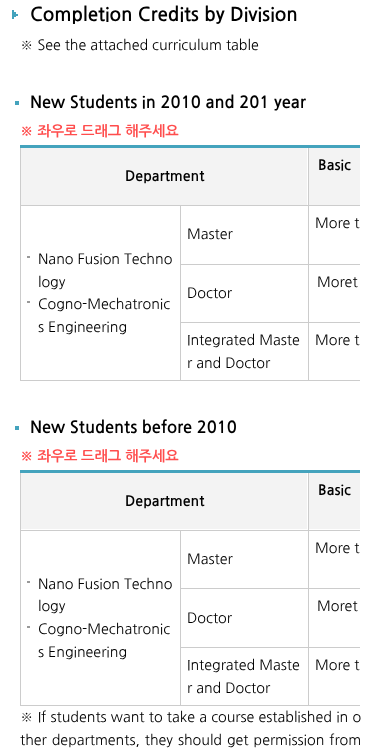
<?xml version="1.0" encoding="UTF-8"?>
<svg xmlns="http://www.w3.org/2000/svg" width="370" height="753">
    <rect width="100%" height="100%" fill="#FFFFFF"/>
    <image x="12" y="10" width="6" height="9" href="img_01.png"/>
    <text x="30" y="21" font-family="NanumGothic" font-size="19" font-weight="700" fill="#000000">Completion Credits by Division</text>
    <text x="20" y="50" font-family="NanumGothic" font-size="14.25" fill="#000000">※ See the attached curriculum table</text>
    <rect x="15" y="101" width="4" height="4" fill="#44A3BD"/>
    <text x="30" y="108" font-family="NanumGothic" font-size="16.6" font-weight="700" fill="#000000">New Students in 2010 and 201 year</text>
    <text x="20" y="136" font-family="'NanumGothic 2'" font-size="14.25" font-weight="700" fill="#FF4D4D">※ 좌우</text>
    <text x="64" y="136" font-family="NanumGothic" font-size="14.25" font-weight="700" fill="#FF4D4D">로</text>
    <text x="81" y="136" font-family="'NanumGothic 2'" font-size="14.25" font-weight="700" fill="#FF4D4D">드래그 해주세요</text>
    <rect x="20" y="145" width="1" height="236" fill="#CCCCCC"/>
    <rect x="308" y="380" width="52" height="1" fill="#CCCCCC"/>
    <rect x="308" y="322" width="1" height="59" fill="#CCCCCC"/>
    <rect x="308" y="322" width="52" height="1" fill="#CCCCCC"/>
    <rect x="308" y="264" width="1" height="59" fill="#CCCCCC"/>
    <rect x="308" y="264" width="52" height="1" fill="#CCCCCC"/>
    <rect x="308" y="205" width="1" height="60" fill="#CCCCCC"/>
    <rect x="308" y="205" width="52" height="1" fill="#CCCCCC"/>
    <rect x="308" y="146" width="1" height="60" fill="#CCCCCC"/>
    <rect x="20" y="145" width="340" height="3" fill="#44A3BD"/>
    <rect x="309" y="148" width="51" height="57" fill="#F3F3F3"/>
    <text x="318" y="170" font-family="NanumGothic" font-size="14.25" font-weight="700" fill="#000000">Basic</text>
    <rect x="21" y="148" width="286" height="57" fill="#F3F3F3"/>
    <rect x="180" y="264" width="129" height="1" fill="#CCCCCC"/>
    <rect x="180" y="322" width="129" height="1" fill="#CCCCCC"/>
    <rect x="180" y="380" width="129" height="1" fill="#CCCCCC"/>
    <rect x="180" y="205" width="1" height="176" fill="#CCCCCC"/>
    <rect x="20" y="205" width="289" height="1" fill="#CCCCCC"/>
    <text x="125" y="181" font-family="NanumGothic" font-size="14.25" font-weight="700" fill="#000000">Department</text>
    <text x="315" y="228" font-family="NanumGothic" font-size="14.25" fill="#000000">More t</text>
    <text x="187" y="239" font-family="NanumGothic" font-size="14.25" fill="#000000">Master</text>
    <rect x="20" y="380" width="161" height="1" fill="#CCCCCC"/>
    <rect x="27" y="256" width="3" height="2" fill="#999999"/>
    <text font-family="NanumGothic" font-size="14.25" fill="#000000">
        <tspan x="38" y="264">Nano Fusion Techno</tspan>
        <tspan x="38" y="287">logy</tspan>
    </text>
    <rect x="27" y="301" width="3" height="2" fill="#999999"/>
    <text font-family="NanumGothic" font-size="14.25" fill="#000000">
        <tspan x="38" y="309">Cogno-Mechatronic</tspan>
        <tspan x="38" y="332">s Engineering</tspan>
    </text>
    <text x="317" y="287" font-family="NanumGothic" font-size="14.25" fill="#000000">Moret</text>
    <text x="187" y="298" font-family="NanumGothic" font-size="14.25" fill="#000000">Doctor</text>
    <text font-family="NanumGothic" font-size="14.25" fill="#000000">
        <tspan x="187" y="345">Integrated Maste</tspan>
        <tspan x="187" y="368">r and Doctor</tspan>
    </text>
    <text x="315" y="345" font-family="NanumGothic" font-size="14.25" fill="#000000">More t</text>
    <rect x="15" y="426" width="4" height="4" fill="#44A3BD"/>
    <text x="30" y="433" font-family="NanumGothic" font-size="16.6" font-weight="700" fill="#000000">New Students before 2010</text>
    <text x="20" y="461" font-family="'NanumGothic 2'" font-size="14.25" font-weight="700" fill="#FF4D4D">※ 좌우</text>
    <text x="64" y="461" font-family="NanumGothic" font-size="14.25" font-weight="700" fill="#FF4D4D">로</text>
    <text x="81" y="461" font-family="'NanumGothic 2'" font-size="14.25" font-weight="700" fill="#FF4D4D">드래그 해주세요</text>
    <rect x="20" y="470" width="1" height="236" fill="#CCCCCC"/>
    <rect x="308" y="705" width="52" height="1" fill="#CCCCCC"/>
    <rect x="308" y="647" width="1" height="59" fill="#CCCCCC"/>
    <rect x="308" y="647" width="52" height="1" fill="#CCCCCC"/>
    <rect x="308" y="588" width="1" height="60" fill="#CCCCCC"/>
    <rect x="308" y="588" width="52" height="1" fill="#CCCCCC"/>
    <rect x="308" y="530" width="1" height="59" fill="#CCCCCC"/>
    <rect x="308" y="530" width="52" height="1" fill="#CCCCCC"/>
    <rect x="308" y="471" width="1" height="60" fill="#CCCCCC"/>
    <rect x="20" y="470" width="340" height="3" fill="#44A3BD"/>
    <rect x="309" y="473" width="51" height="56" fill="#F3F3F3"/>
    <text x="318" y="495" font-family="NanumGothic" font-size="14.25" font-weight="700" fill="#000000">Basic</text>
    <rect x="21" y="473" width="286" height="56" fill="#F3F3F3"/>
    <rect x="180" y="588" width="129" height="1" fill="#CCCCCC"/>
    <rect x="180" y="647" width="129" height="1" fill="#CCCCCC"/>
    <rect x="180" y="705" width="129" height="1" fill="#CCCCCC"/>
    <rect x="180" y="530" width="1" height="176" fill="#CCCCCC"/>
    <rect x="20" y="530" width="289" height="1" fill="#CCCCCC"/>
    <text x="125" y="506" font-family="NanumGothic" font-size="14.25" font-weight="700" fill="#000000">Department</text>
    <text x="315" y="553" font-family="NanumGothic" font-size="14.25" fill="#000000">More t</text>
    <text x="187" y="564" font-family="NanumGothic" font-size="14.25" fill="#000000">Master</text>
    <rect x="20" y="705" width="161" height="1" fill="#CCCCCC"/>
    <rect x="27" y="581" width="3" height="2" fill="#999999"/>
    <text font-family="NanumGothic" font-size="14.25" fill="#000000">
        <tspan x="38" y="589">Nano Fusion Techno</tspan>
        <tspan x="38" y="611">logy</tspan>
    </text>
    <rect x="27" y="626" width="3" height="2" fill="#999999"/>
    <text font-family="NanumGothic" font-size="14.25" fill="#000000">
        <tspan x="38" y="634">Cogno-Mechatronic</tspan>
        <tspan x="38" y="657">s Engineering</tspan>
    </text>
    <text x="317" y="611" font-family="NanumGothic" font-size="14.25" fill="#000000">Moret</text>
    <text x="187" y="623" font-family="NanumGothic" font-size="14.25" fill="#000000">Doctor</text>
    <text font-family="NanumGothic" font-size="14.25" fill="#000000">
        <tspan x="187" y="670">Integrated Maste</tspan>
        <tspan x="187" y="693">r and Doctor</tspan>
    </text>
    <text x="315" y="670" font-family="NanumGothic" font-size="14.25" fill="#000000">More t</text>
    <text font-family="NanumGothic" font-size="14.25" fill="#000000">
        <tspan x="20" y="722" word-spacing="0.25">※ If students want to take a course established in o</tspan>
        <tspan x="20" y="745" word-spacing="1">ther departments, they should get permission from</tspan>
    </text>
</svg>
